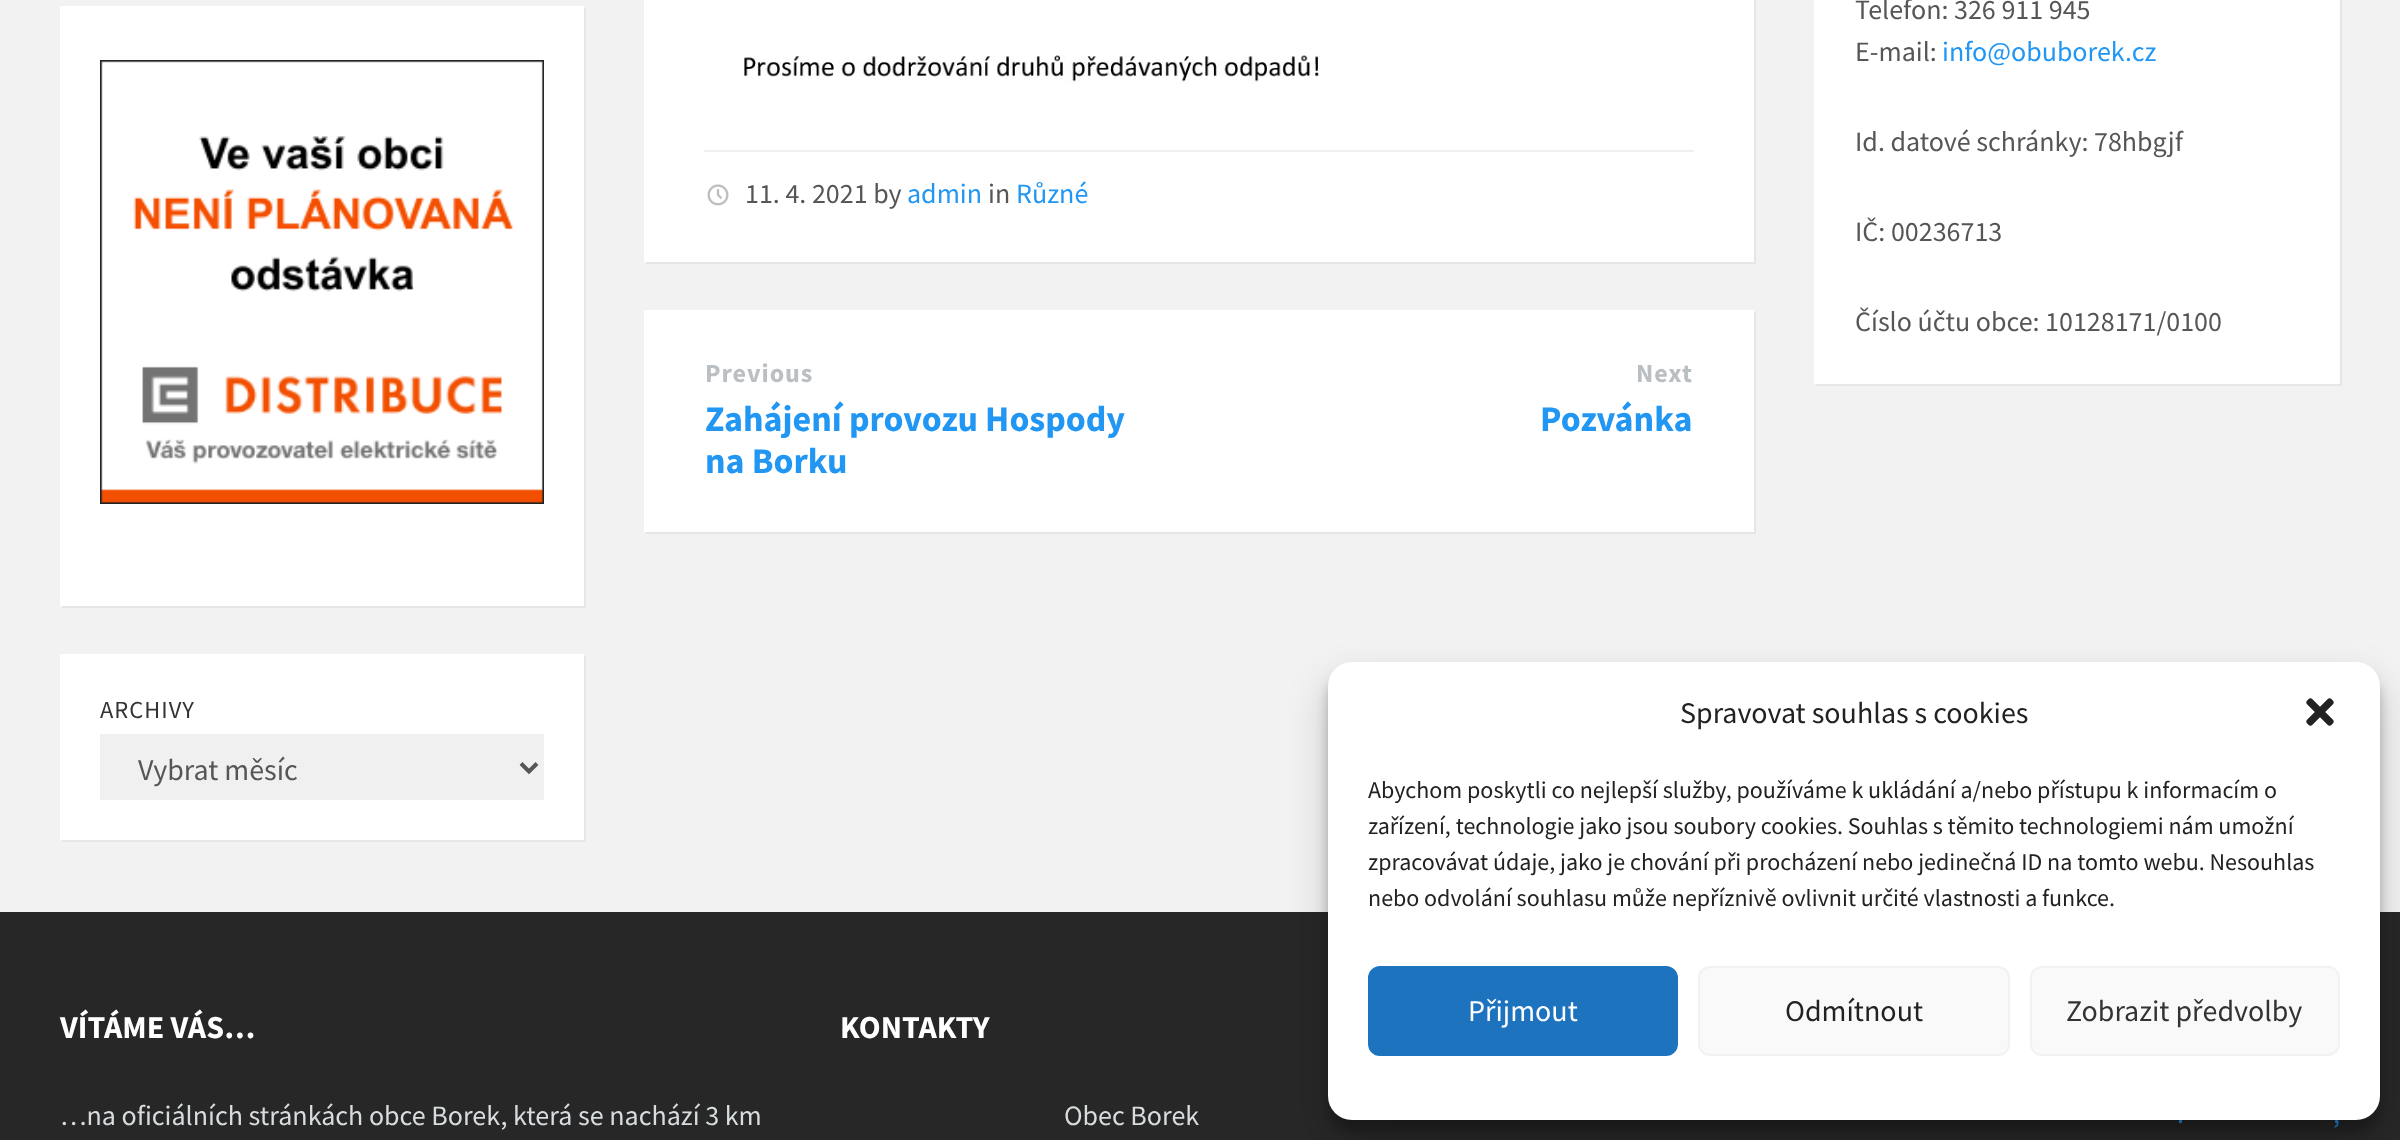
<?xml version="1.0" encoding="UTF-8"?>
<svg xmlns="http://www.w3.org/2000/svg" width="2400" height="1140">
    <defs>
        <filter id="blur1" x="-50%" y="-200%" width="200%" height="500%"><feGaussianBlur stdDeviation="6"/></filter>
        <filter id="blur2" x="-50%" y="-200%" width="200%" height="500%"><feGaussianBlur stdDeviation="20"/></filter>
    </defs>
    <rect width="100%" height="100%" fill="#F2F2F2"/>
    <path d="M 646 262 V 264 H 1756 V -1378 H 1754 V 262 Z" fill="#E6E6E6"/>
    <rect x="644" y="0" width="1110" height="262" fill="#FFFFFF"/>
    <image x="743" y="55" width="577" height="29" href="img_01.png"/>
    <rect x="704" y="150" width="990" height="2" fill="#F0F0F0"/>
    <image x="707" y="184" width="22" height="22" href="img_02.png"/>
    <text x="745" y="203" font-family="Source Sans Pro" font-size="28" fill="#565656">11. 4. 2021 by</text>
    <text x="907" y="203" font-family="Source Sans Pro" font-size="28" fill="#2196F3">admin</text>
    <text x="988" y="203" font-family="Source Sans Pro" font-size="28" fill="#565656">in</text>
    <text x="1016" y="203" font-family="Source Sans Pro" font-size="28" fill="#2196F3">Různé</text>
    <path d="M 646 532 V 534 H 1756 V 312 H 1754 V 532 Z" fill="#E6E6E6"/>
    <rect x="644" y="310" width="1110" height="222" fill="#FFFFFF"/>
    <text x="705" y="382" font-family="Source Sans Pro" font-size="26" font-weight="700" letter-spacing="1" fill="#B9BFC3">Previous</text>
    <text font-family="Source Sans Pro" font-size="36" font-weight="700" fill="#2196F3">
        <tspan x="705" y="431">Zahájení provozu Hospody</tspan>
        <tspan x="705" y="473">na Borku</tspan>
    </text>
    <text x="1636" y="382" font-family="Source Sans Pro" font-size="26" font-weight="700" letter-spacing="1" fill="#B9BFC3">Next</text>
    <text x="1540" y="431" font-family="Source Sans Pro" font-size="36" font-weight="700" fill="#2196F3">Pozvánka</text>
    <path d="M 1816 384 V 386 H 2342 V -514 H 2340 V 384 Z" fill="#E6E6E6"/>
    <rect x="1814" y="0" width="526" height="384" fill="#FFFFFF"/>
    <text font-family="Source Sans Pro" font-size="28" fill="#565656">
        <tspan x="1855" y="19">Telefon: 326 911 945</tspan>
        <tspan x="1855" y="61">E-mail:</tspan>
    </text>
    <text x="1942" y="61" font-family="Source Sans Pro" font-size="28" fill="#2196F3">info@obuborek.cz</text>
    <text x="1855" y="151" font-family="Source Sans Pro" font-size="28" fill="#565656">Id. datové schránky: 78hbgjf</text>
    <text x="1855" y="241" font-family="Source Sans Pro" font-size="28" fill="#565656">IČ: 00236713</text>
    <text x="1855" y="331" font-family="Source Sans Pro" font-size="28" fill="#565656">Číslo účtu obce: 10128171/0100</text>
    <path d="M 62 606 V 608 H 586 V 8 H 584 V 606 Z" fill="#E6E6E6"/>
    <rect x="60" y="6" width="524" height="600" fill="#FFFFFF"/>
    <image x="100" y="60" width="444" height="444" href="img_03.png"/>
    <path d="M 62 840 V 842 H 586 V 656 H 584 V 840 Z" fill="#E6E6E6"/>
    <rect x="60" y="654" width="524" height="186" fill="#FFFFFF"/>
    <text x="100" y="718" font-family="Source Sans Pro" font-size="24.5" letter-spacing="1" fill="#333333">ARCHIVY</text>
    <rect x="100" y="734" width="444" height="66" fill="#F0F0F0"/>
    <path d="M 521 763.5 L 529 771.5 L 537 763.5" fill="none" stroke="#565656" stroke-width="4"/>
    <text x="138" y="780" font-family="Source Sans Pro" font-size="30" fill="#565656">Vybrat měsíc</text>
    <rect x="0" y="912" width="2400" height="228" fill="#272727"/>
    <text x="60" y="1038" font-family="Source Sans Pro" font-size="32" font-weight="700" fill="#FFFFFF">VÍTÁME VÁS…</text>
    <text x="60" y="1125" font-family="Source Sans Pro" font-size="28" fill="#D7DCDF">…na oficiálních stránkách obce Borek, která se nachází 3 km</text>
    <text x="840" y="1038" font-family="Source Sans Pro" font-size="32" font-weight="700" fill="#FFFFFF">KONTAKTY</text>
    <text x="1064" y="1125" font-family="Source Sans Pro" font-size="28" fill="#D7DCDF">Obec Borek</text>
    <text x="2177" y="1123" font-family="Source Sans Pro" font-size="28" fill="#2196F3">.</text>
    <text x="2333" y="1123" font-family="Source Sans Pro" font-size="28" fill="#2196F3">,</text>
    <rect x="1328" y="674" width="1052" height="458" rx="24" fill="#000000" fill-opacity="0.23" filter="url(#blur1)"/>
    <rect x="1328" y="682" width="1052" height="458" rx="24" fill="#000000" fill-opacity="0.19" filter="url(#blur2)"/>
    <rect x="1328" y="662" width="1052" height="458" rx="24" fill="#FFFFFF"/>
    <text x="1680" y="723" font-family="Source Sans Pro" font-size="30" fill="#222222">Spravovat souhlas s cookies</text>
    <image x="2306" y="698" width="28" height="28" href="img_04.png"/>
    <text font-family="Source Sans Pro" font-size="24" fill="#222222">
        <tspan x="1368" y="798">Abychom poskytli co nejlepší služby, používáme k ukládání a/nebo přístupu k informacím o</tspan>
        <tspan x="1368" y="834">zařízení, technologie jako jsou soubory cookies. Souhlas s těmito technologiemi nám umožní</tspan>
        <tspan x="1368" y="870">zpracovávat údaje, jako je chování při procházení nebo jedinečná ID na tomto webu. Nesouhlas</tspan>
        <tspan x="1368" y="906">nebo odvolání souhlasu může nepříznivě ovlivnit určité vlastnosti a funkce.</tspan>
    </text>
    <rect x="1369" y="967" width="308" height="88" rx="11" fill="#1E73BE" stroke="#1E73BE" stroke-width="2"/>
    <text x="1468" y="1021" font-family="Source Sans Pro" font-size="30" fill="#FFFFFF">Přijmout</text>
    <rect x="1699" y="967" width="310" height="88" rx="11" fill="#F9F9F9" stroke="#F2F2F2" stroke-width="2"/>
    <text x="1785" y="1021" font-family="Source Sans Pro" font-size="30" fill="#222222">Odmítnout</text>
    <rect x="2031" y="967" width="308" height="88" rx="11" fill="#F9F9F9" stroke="#F2F2F2" stroke-width="2"/>
    <text x="2066" y="1021" font-family="Source Sans Pro" font-size="30" fill="#333333">Zobrazit předvolby</text>
</svg>
